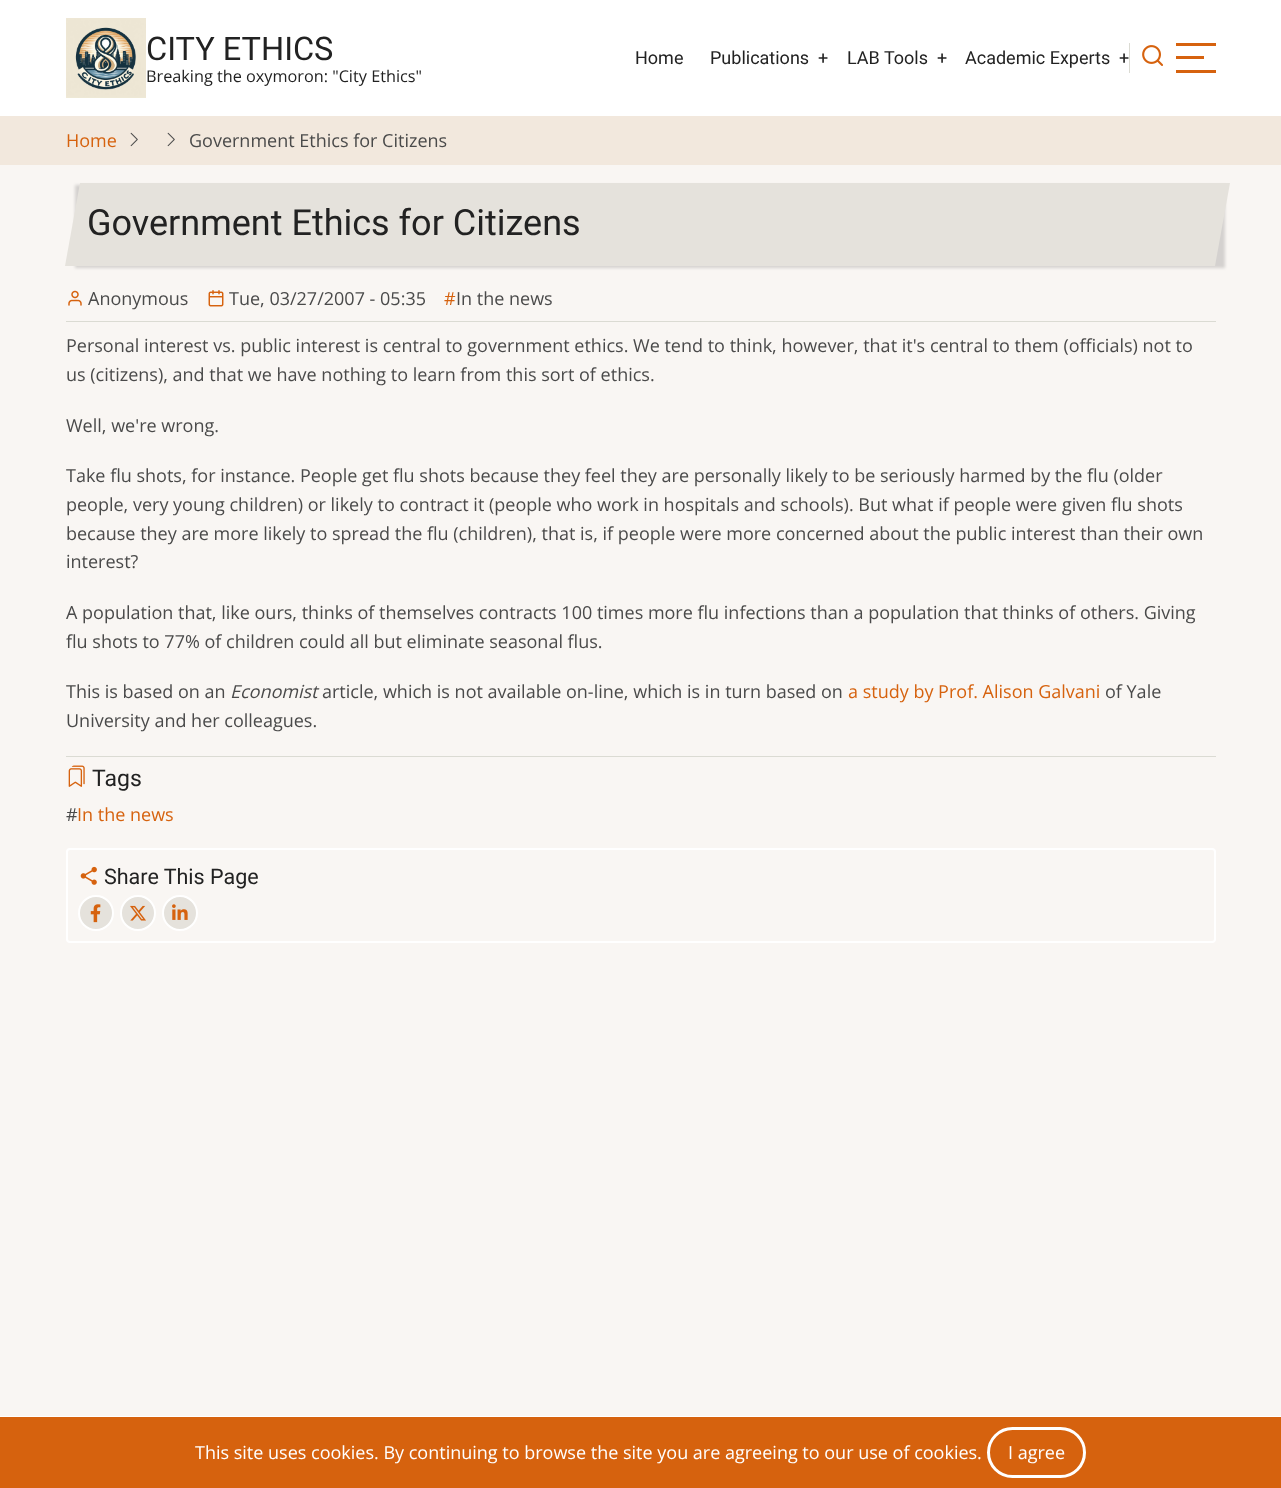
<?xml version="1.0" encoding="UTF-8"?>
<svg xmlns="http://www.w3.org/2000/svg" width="1281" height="1488">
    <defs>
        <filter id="blur1" x="-50%" y="-200%" width="200%" height="500%"><feGaussianBlur stdDeviation="1.5"/></filter>
    </defs>
    <rect width="100%" height="100%" fill="#F9F6F3"/>
    <rect x="0" y="0" width="1281" height="116" fill="#FFFFFF"/>
    <image x="66" y="18" width="80" height="80" href="img_01.png"/>
    <text x="146" y="60" font-family="Roboto" font-size="32.5" fill="#222222">CITY ETHICS</text>
    <text x="146" y="82" font-family="Open Sans" font-size="16.25" fill="#222222">Breaking the oxymoron: "City Ethics"</text>
    <text x="635" y="64" font-family="Roboto" font-size="18" fill="#222222">Home</text>
    <text x="710" y="64" font-family="Roboto" font-size="18" fill="#222222">Publications</text>
    <text x="818" y="64" font-family="Roboto" font-size="18" fill="#222222">+</text>
    <text x="847" y="64" font-family="Roboto" font-size="18" fill="#222222">LAB Tools</text>
    <text x="937" y="64" font-family="Roboto" font-size="18" fill="#222222">+</text>
    <text x="965" y="64" font-family="Roboto" font-size="18" fill="#222222">Academic Experts</text>
    <text x="1119" y="64" font-family="Roboto" font-size="18" fill="#222222">+</text>
    <rect x="1129" y="43" width="1" height="30" fill="#DBDBD3"/>
    <image x="1142" y="45" width="21" height="21" href="img_02.png"/>
    <rect x="1176" y="43" width="40" height="3" fill="#D6620E"/>
    <rect x="1176" y="56" width="28" height="3" fill="#D6620E"/>
    <rect x="1176" y="70" width="40" height="3" fill="#D6620E"/>
    <rect x="0" y="116" width="1281" height="49" fill="#F2E8DD"/>
    <text x="66" y="147" font-family="Open Sans" font-size="18" fill="#D6620E">Home</text>
    <image x="130" y="132" width="8" height="15" href="img_03.png"/>
    <image x="167" y="132" width="8" height="15" href="img_03.png"/>
    <text x="189" y="147" font-family="Open Sans" font-size="18" fill="#4A4A4A">Government Ethics for Citizens</text>
    <rect x="75" y="185" width="1150" height="83" fill="#000000" fill-opacity="0.15" filter="url(#blur1)"/>
    <path d="M 80 183 H 1230 L 1215 266 H 65 Z" fill="#E5E2DC"/>
    <text x="87" y="235" font-family="Roboto" font-size="36" fill="#222222">Government Ethics for Citizens</text>
    <rect x="66" y="321" width="1150" height="1" fill="#DBDBD3"/>
    <image x="68" y="290" width="14" height="16" href="img_04.png"/>
    <text x="88" y="305" font-family="Open Sans" font-size="18" fill="#4A4A4A">Anonymous</text>
    <image x="208" y="290" width="16" height="17" href="img_05.png"/>
    <text x="229" y="305" font-family="Open Sans" font-size="18" fill="#4A4A4A">Tue, 03/27/2007 - 05:35</text>
    <text x="444" y="305" font-family="Open Sans" font-size="18" fill="#D6620E">#</text>
    <text x="456" y="305" font-family="Open Sans" font-size="18" fill="#4A4A4A">In the news</text>
    <text font-family="Open Sans" font-size="18" fill="#4A4A4A">
        <tspan x="66" y="352">Personal interest vs. public interest is central to government ethics. We tend to think, however, that it's central to them (officials) not to</tspan>
        <tspan x="66" y="381">us (citizens), and that we have nothing to learn from this sort of ethics.</tspan>
    </text>
    <text x="66" y="432" font-family="Open Sans" font-size="18" fill="#4A4A4A">Well, we're wrong.</text>
    <text font-family="Open Sans" font-size="18" fill="#4A4A4A">
        <tspan x="66" y="482">Take flu shots, for instance. People get flu shots because they feel they are personally likely to be seriously harmed by the flu (older</tspan>
        <tspan x="66" y="511">people, very young children) or likely to contract it (people who work in hospitals and schools). But what if people were given flu shots</tspan>
        <tspan x="66" y="540">because they are more likely to spread the flu (children), that is, if people were more concerned about the public interest than their own</tspan>
        <tspan x="66" y="568">interest?</tspan>
    </text>
    <text font-family="Open Sans" font-size="18" fill="#4A4A4A">
        <tspan x="66" y="619">A population that, like ours, thinks of themselves contracts 100 times more flu infections than a population that thinks of others. Giving</tspan>
        <tspan x="66" y="648">flu shots to 77% of children could all but eliminate seasonal flus.</tspan>
    </text>
    <text x="66" y="698" font-family="Open Sans" font-size="18" fill="#4A4A4A">This is based on an</text>
    <text x="230" y="698" font-family="Open Sans" font-size="18" font-style="italic" fill="#4A4A4A">Economist</text>
    <text x="322" y="698" font-family="Open Sans" font-size="18" fill="#4A4A4A">article, which is not available on-line, which is in turn based on</text>
    <text x="848" y="698" font-family="Open Sans" font-size="18" fill="#D6620E">a study by Prof. Alison Galvani</text>
    <text x="1105" y="698" font-family="Open Sans" font-size="18" fill="#4A4A4A">of Yale</text>
    <text x="66" y="727" font-family="Open Sans" font-size="18" fill="#4A4A4A">University and her colleagues.</text>
    <rect x="66" y="756" width="1150" height="1" fill="#DBDBD3"/>
    <image x="68" y="765" width="17" height="22" href="img_06.png"/>
    <text x="92" y="786" font-family="Roboto" font-size="23" fill="#222222">Tags</text>
    <text x="66" y="821" font-family="Open Sans" font-size="18" fill="#4A4A4A">#</text>
    <text x="77" y="821" font-family="Open Sans" font-size="18" fill="#D6620E">In the news</text>
    <rect x="67" y="849" width="1148" height="93" rx="3" fill="none" stroke="#FFFFFF" stroke-width="2"/>
    <image x="80" y="866" width="17" height="19" href="img_07.png"/>
    <text x="104" y="884" font-family="Roboto" font-size="21.5" fill="#222222">Share This Page</text>
    <circle cx="96" cy="913" r="17" fill="#E5E2DC" stroke="#FFFFFF" stroke-width="2"/>
    <image x="90" y="904" width="11" height="19" href="img_08.png"/>
    <circle cx="138" cy="913" r="17" fill="#E5E2DC" stroke="#FFFFFF" stroke-width="2"/>
    <image x="130" y="905" width="16" height="16" href="img_09.png"/>
    <circle cx="180" cy="913" r="17" fill="#E5E2DC" stroke="#FFFFFF" stroke-width="2"/>
    <image x="172" y="904" width="16" height="16" href="img_10.png"/>
    <rect x="0" y="1416" width="1281" height="1" fill="#FFFFFF"/>
    <rect x="0" y="1417" width="1281" height="71" fill="#D6620E"/>
    <text x="195" y="1459" font-family="Open Sans" font-size="18" fill="#FFFFFF">This site uses cookies. By continuing to browse the site you are agreeing to our use of cookies.</text>
    <rect x="988.5" y="1428.5" width="96" height="48" rx="24" fill="none" stroke="#FFFFFF" stroke-width="3"/>
    <text x="1008" y="1459" font-family="Open Sans" font-size="18" fill="#FFFFFF">I agree</text>
</svg>
